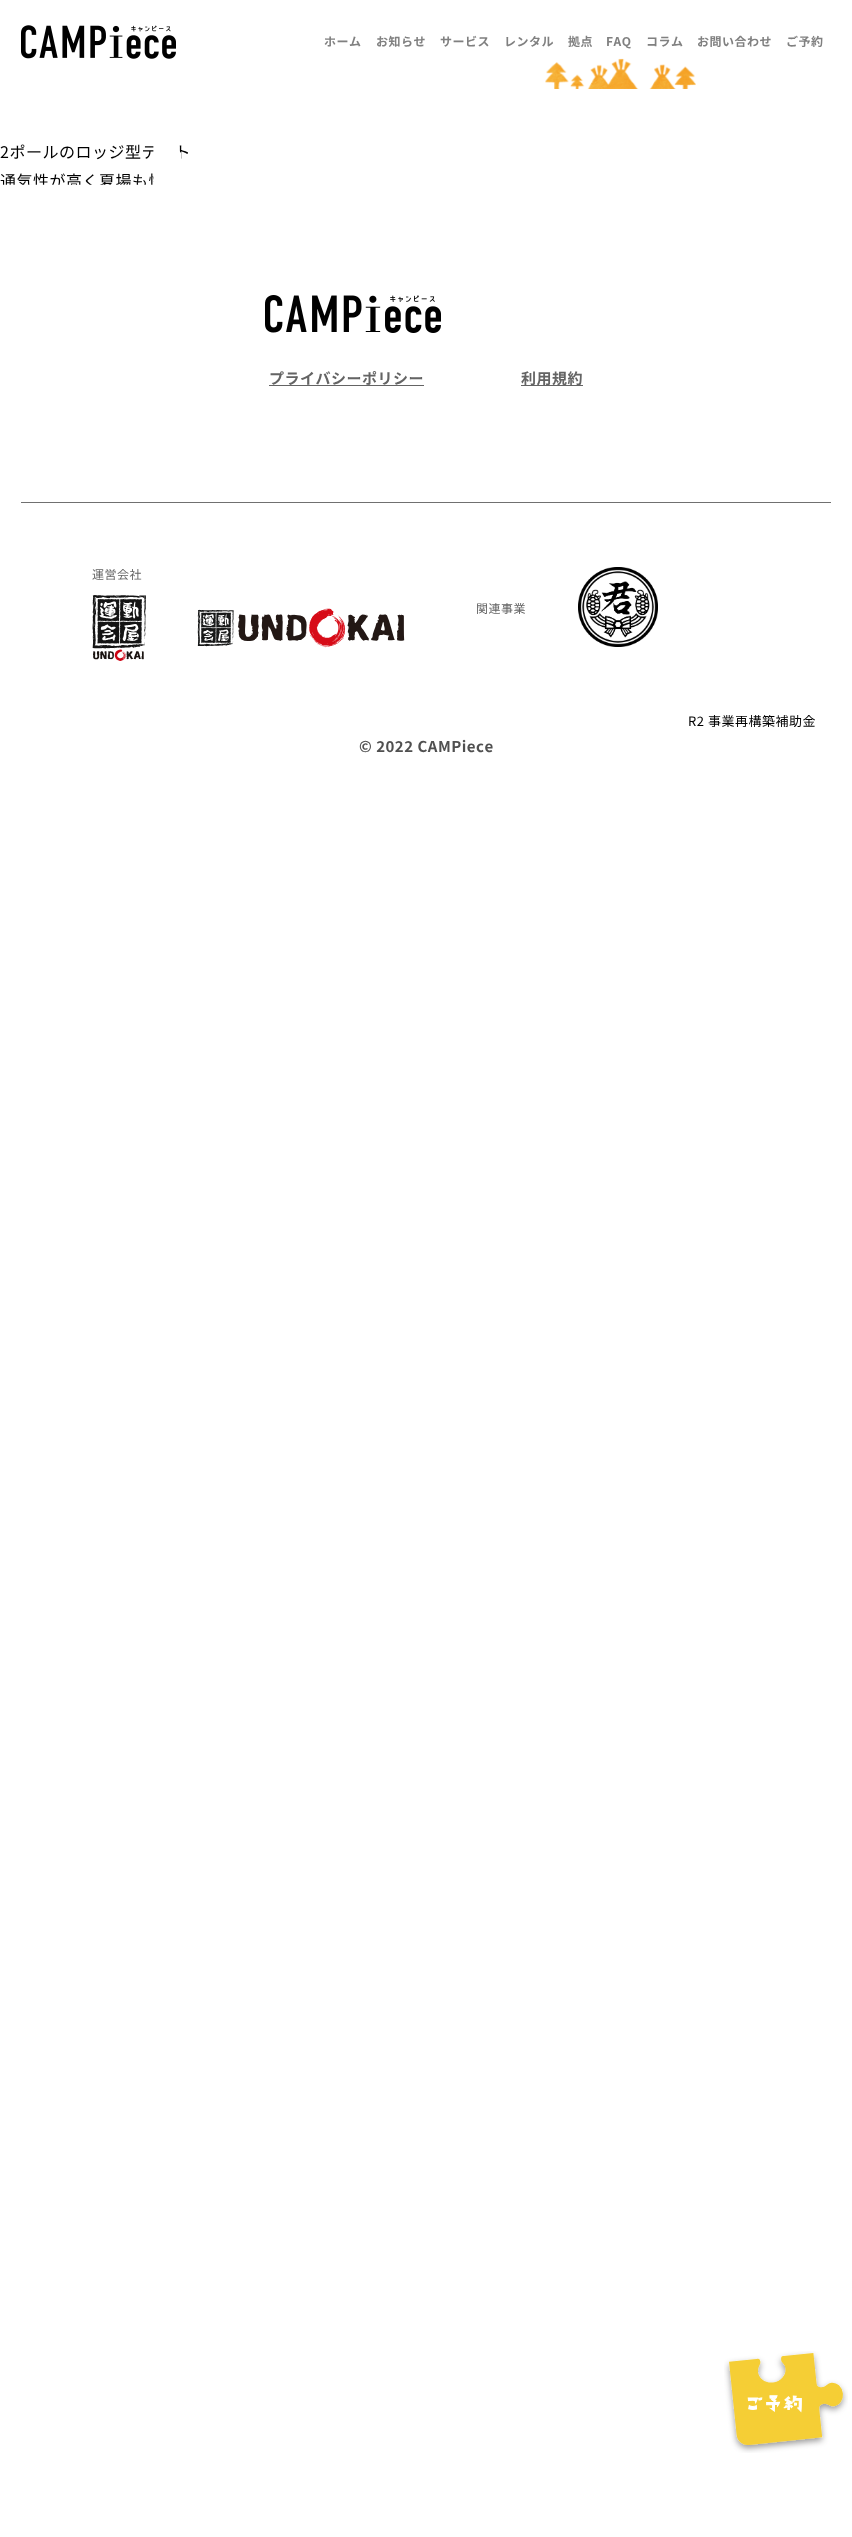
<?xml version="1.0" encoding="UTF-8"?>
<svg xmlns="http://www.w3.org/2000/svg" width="852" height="2537">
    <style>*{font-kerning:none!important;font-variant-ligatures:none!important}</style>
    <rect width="100%" height="100%" fill="#FFFFFF"/>
    <image x="21" y="25" width="155" height="34" href="img_01.png"/>
    <text x="324" y="46" font-family="Noto Sans JP" font-size="12" font-weight="700" letter-spacing="0.5" fill="#808080">ホーム</text>
    <text x="376" y="46" font-family="Noto Sans JP" font-size="12" font-weight="700" letter-spacing="0.5" fill="#808080">お知らせ</text>
    <text x="440" y="46" font-family="Noto Sans JP" font-size="12" font-weight="700" letter-spacing="0.5" fill="#808080">サービス</text>
    <text x="504" y="46" font-family="Noto Sans JP" font-size="12" font-weight="700" letter-spacing="0.5" fill="#808080">レンタル</text>
    <text x="568" y="46" font-family="Noto Sans JP" font-size="12" font-weight="700" letter-spacing="0.5" fill="#808080">拠点</text>
    <text x="606" y="46" font-family="Noto Sans JP" font-size="12" font-weight="700" letter-spacing="0.5" fill="#808080">FAQ</text>
    <text x="646" y="46" font-family="Noto Sans JP" font-size="12" font-weight="700" letter-spacing="0.5" fill="#808080">コラム</text>
    <text x="697" y="46" font-family="Noto Sans JP" font-size="12" font-weight="700" letter-spacing="0.5" fill="#808080">お問い合わせ</text>
    <text x="786" y="46" font-family="Noto Sans JP" font-size="12" font-weight="700" letter-spacing="0.5" fill="#808080">ご予約</text>
    <image x="545" y="58" width="151" height="31" href="img_02.png"/>
    <text font-family="Noto Sans JP" font-size="16" letter-spacing="0.5" fill="#000000">
        <tspan x="0" y="158">2ポールのロッジ型テント</tspan>
        <tspan x="0" y="187">通気性が高く夏場も快</tspan>
    </text>
    <image x="0" y="146" width="181" height="43" href="img_03.png"/>
    <rect x="21" y="502" width="810" height="1" fill="#707070"/>
    <image x="265" y="295" width="176" height="38" href="img_04.png"/>
    <text x="269" y="384" font-family="Noto Sans JP" font-size="15" font-weight="700" letter-spacing="0.5" fill="#646464">プライバシーポリシー</text>
    <rect x="269" y="385" width="155" height="1" fill="#646464"/>
    <rect x="521" y="385" width="62" height="1" fill="#646464"/>
    <text x="521" y="384" font-family="Noto Sans JP" font-size="15" font-weight="700" letter-spacing="0.5" fill="#646464">利用規約</text>
    <text x="92" y="579" font-family="Noto Sans JP" font-size="12" letter-spacing="0.5" fill="#646464">運営会社</text>
    <image x="92" y="595" width="54" height="66" href="img_05.png"/>
    <image x="197" y="608" width="208" height="40" href="img_06.png"/>
    <text x="476" y="613" font-family="Noto Sans JP" font-size="12" letter-spacing="0.5" fill="#646464">関連事業</text>
    <image x="578" y="567" width="80" height="80" href="img_07.png"/>
    <text x="688" y="726" font-family="Noto Sans JP" font-size="13" letter-spacing="0.5" fill="#000000">R2 事業再構築補助金</text>
    <text x="359" y="752" font-family="Noto Sans JP" font-size="15" font-weight="700" letter-spacing="0.5" fill="#505050">© 2022 CAMPiece</text>
    <image x="724" y="2351" width="124" height="102" href="img_08.png"/>
</svg>
